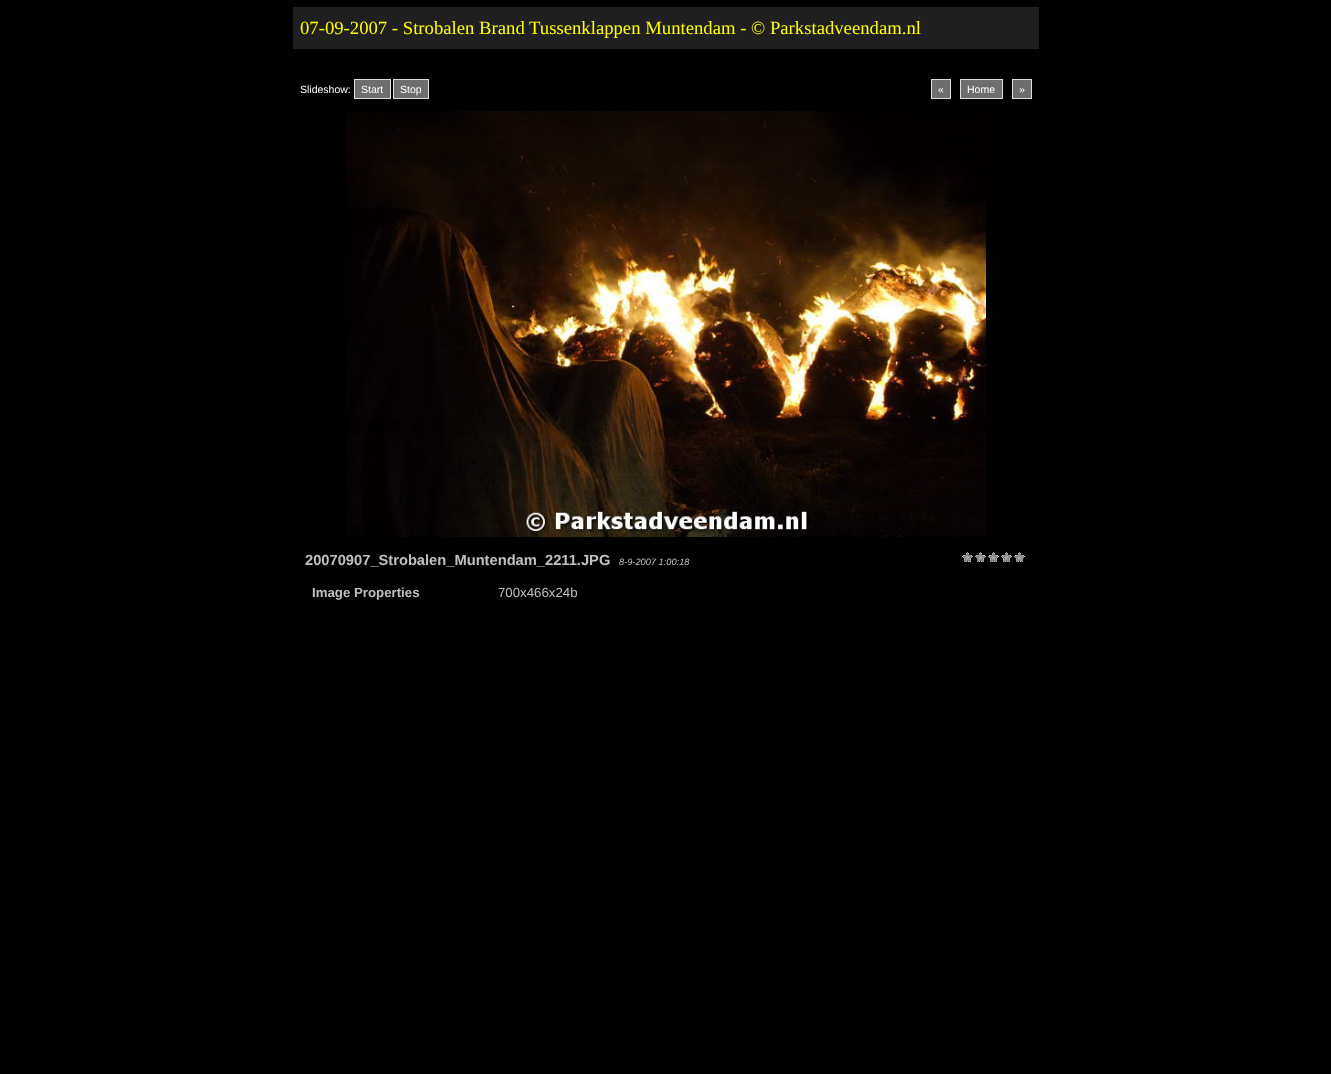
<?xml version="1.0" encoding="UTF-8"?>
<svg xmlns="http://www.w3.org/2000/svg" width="1331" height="1074">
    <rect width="100%" height="100%" fill="#000000"/>
    <rect x="293" y="7" width="746" height="42" fill="#1F1F1F"/>
    <text x="300" y="34" font-family="Liberation Serif" font-size="18.7" fill="#FFFF00">07-09-2007 - Strobalen Brand Tussenklappen Muntendam - © Parkstadveendam.nl</text>
    <text x="300" y="93" font-family="Liberation Sans" font-size="10.5" fill="#FFFFFF">Slideshow:</text>
    <rect x="354.5" y="79.5" width="36" height="19" fill="#6E6E6E" stroke="#DDDDDD"/>
    <text x="361" y="93" font-family="Liberation Sans" font-size="10.5" fill="#FFFFFF">Start</text>
    <rect x="393.5" y="79.5" width="35" height="19" fill="#6E6E6E" stroke="#DDDDDD"/>
    <text x="400" y="93" font-family="Liberation Sans" font-size="10.5" fill="#FFFFFF">Stop</text>
    <rect x="931.5" y="79.5" width="19" height="19" fill="#6E6E6E" stroke="#DDDDDD"/>
    <text x="938" y="93" font-family="Liberation Sans" font-size="10.5" fill="#FFFFFF">«</text>
    <rect x="960.5" y="79.5" width="42" height="19" fill="#6E6E6E" stroke="#DDDDDD"/>
    <text x="967" y="93" font-family="Liberation Sans" font-size="10.5" fill="#FFFFFF">Home</text>
    <rect x="1012.5" y="79.5" width="19" height="19" fill="#6E6E6E" stroke="#DDDDDD"/>
    <text x="1019" y="93" font-family="Liberation Sans" font-size="10.5" fill="#FFFFFF">»</text>
    <image x="346" y="111" width="640" height="426" href="img_01.png"/>
    <text x="305" y="565" font-family="Liberation Sans" font-size="14.7" font-weight="700" fill="#C0C0C0">20070907_Strobalen_Muntendam_2211.JPG</text>
    <text x="619" y="565" font-family="Liberation Sans" font-size="9.25" font-style="italic" fill="#C0C0C0">8-9-2007 1:00:18</text>
    <image x="962" y="552" width="63" height="10" href="img_02.png"/>
    <text x="312" y="597" font-family="Liberation Sans" font-size="13.25" font-weight="700" fill="#C0C0C0">Image Properties</text>
    <text x="498" y="597" font-family="Liberation Sans" font-size="13.25" fill="#C0C0C0">700x466x24b</text>
</svg>
